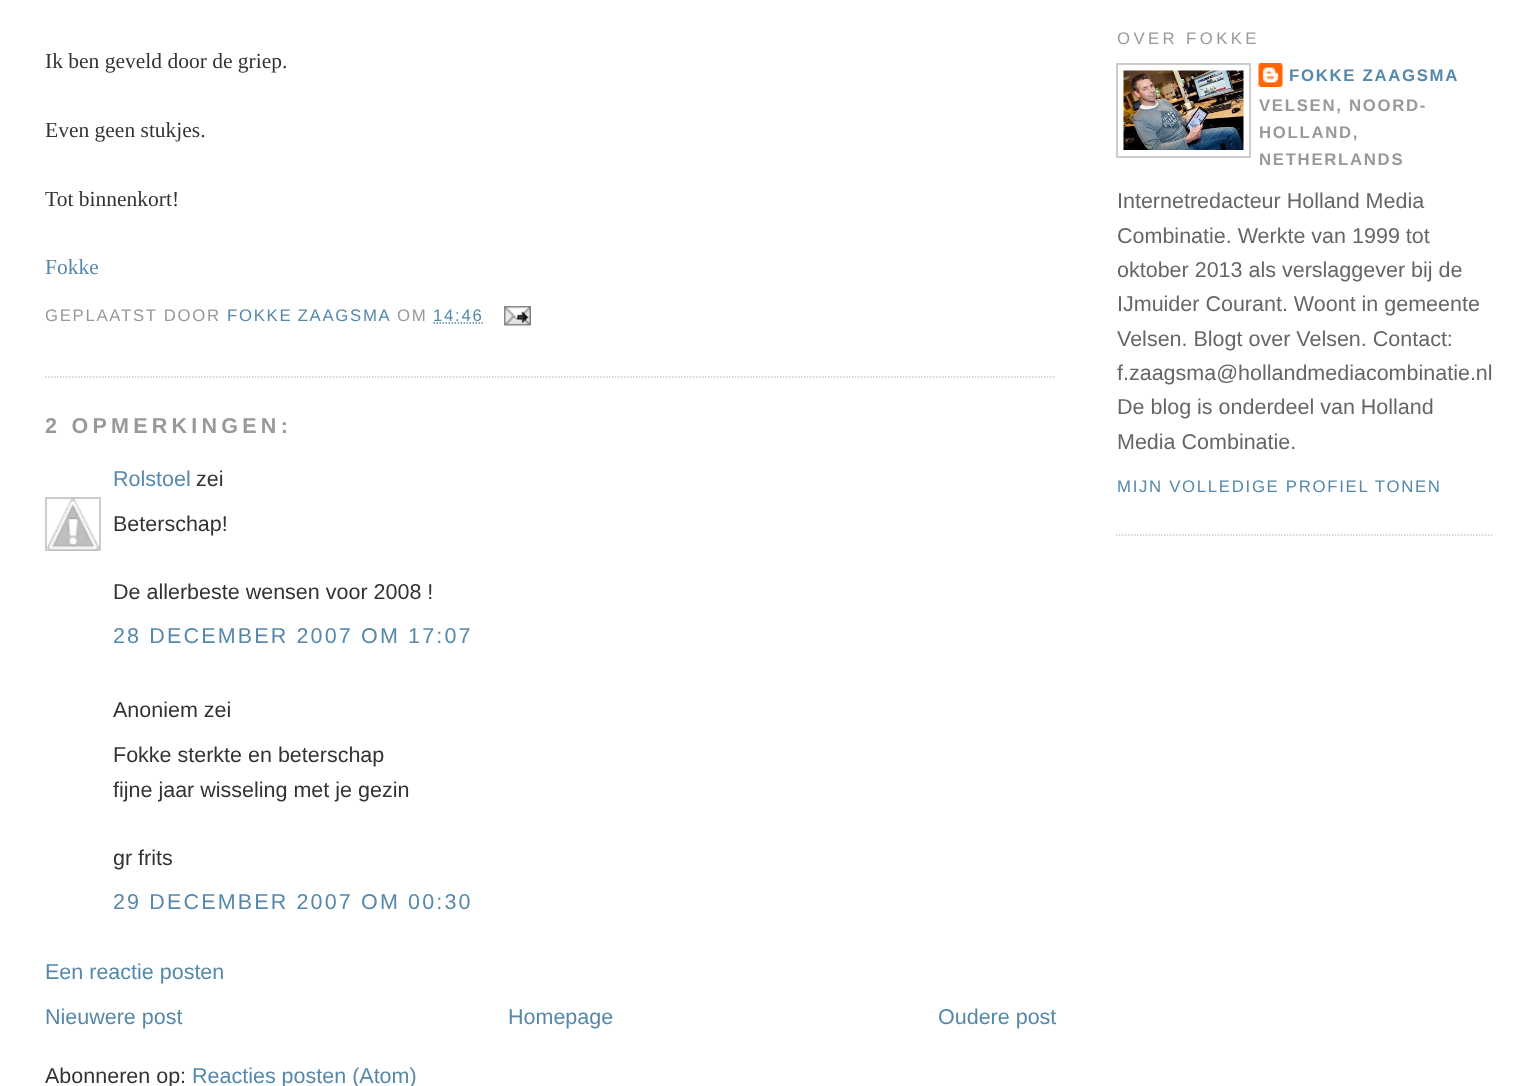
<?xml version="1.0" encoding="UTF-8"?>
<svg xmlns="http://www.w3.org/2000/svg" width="1539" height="1086">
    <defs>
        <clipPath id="clip1"><rect x="45" y="497" width="56" height="54"/></clipPath>
    </defs>
    <rect width="100%" height="100%" fill="#FFFFFF"/>
    <path d="M 45 377 H 1056" fill="none" stroke="#CCCCCC" stroke-width="1.5" stroke-dasharray="1.5 1.5"/>
    <text x="45" y="68" font-family="Liberation Serif" font-size="21.5" fill="#333333">Ik ben geveld door de griep.</text>
    <text x="45" y="137" font-family="Liberation Serif" font-size="21.5" fill="#333333">Even geen stukjes.</text>
    <text x="45" y="206" font-family="Liberation Serif" font-size="21.5" fill="#333333">Tot binnenkort!</text>
    <text x="45" y="274" font-family="Liberation Serif" font-size="21.5" fill="#5588AA">Fokke</text>
    <text x="45" y="321" font-family="Liberation Sans" font-size="16.75" letter-spacing="1.7" fill="#999999">GEPLAATST DOOR</text>
    <text x="227" y="321" word-spacing="-1" font-family="Liberation Sans" font-size="16.75" letter-spacing="1.7" fill="#5588AA">FOKKE ZAAGSMA</text>
    <text x="397" y="321" font-family="Liberation Sans" font-size="16.75" letter-spacing="1.7" fill="#999999">OM</text>
    <text x="433" y="321" font-family="Liberation Sans" font-size="16.75" letter-spacing="1.7" fill="#5588AA">14:46</text>
    <path d="M 433.5 323 H 483.5" fill="none" stroke="#5588AA" stroke-width="1.5" stroke-dasharray="1.5 1.5"/>
    <image x="504" y="306" width="27" height="20" href="img_01.png"/>
    <text x="45" y="433" font-family="Liberation Sans" font-size="21.5" font-weight="700" letter-spacing="4.25" fill="#999999">2 OPMERKINGEN:</text>
    <text x="113" y="486" font-family="Liberation Sans" font-size="21.5" fill="#5588AA">Rolstoel</text>
    <text x="196" y="486" font-family="Liberation Sans" font-size="21.5" fill="#333333">zei</text>
    <g clip-path="url(#clip1)">
        <rect x="46" y="498" width="54" height="53" fill="none" stroke="#CCCCCC" stroke-width="2"/>
    </g>
    <image x="46" y="498" width="53" height="53" href="img_02.png"/>
    <text x="113" y="531" font-family="Liberation Sans" font-size="21.5" fill="#333333">Beterschap!</text>
    <text x="113" y="599" font-family="Liberation Sans" font-size="21.5" fill="#333333">De allerbeste wensen voor 2008 !</text>
    <text x="113" y="643" font-family="Liberation Sans" font-size="21.5" letter-spacing="2.15" fill="#5588AA">28 DECEMBER 2007 OM 17:07</text>
    <text x="113" y="717" font-family="Liberation Sans" font-size="21.5" fill="#333333">Anoniem zei</text>
    <text font-family="Liberation Sans" font-size="21.5" fill="#333333">
        <tspan x="113" y="762">Fokke sterkte en beterschap</tspan>
        <tspan x="113" y="797">fijne jaar wisseling met je gezin</tspan>
    </text>
    <text x="113" y="865" font-family="Liberation Sans" font-size="21.5" fill="#333333">gr frits</text>
    <text x="113" y="909" font-family="Liberation Sans" font-size="21.5" letter-spacing="2.15" fill="#5588AA">29 DECEMBER 2007 OM 00:30</text>
    <text x="45" y="979" font-family="Liberation Sans" font-size="21.5" fill="#5588AA">Een reactie posten</text>
    <text x="45" y="1024" font-family="Liberation Sans" font-size="21.5" fill="#5588AA">Nieuwere post</text>
    <text x="508" y="1024" font-family="Liberation Sans" font-size="21.5" fill="#5588AA">Homepage</text>
    <text x="938" y="1024" font-family="Liberation Sans" font-size="21.5" fill="#5588AA">Oudere post</text>
    <text x="45" y="1083" font-family="Liberation Sans" font-size="21.5" fill="#333333">Abonneren op:</text>
    <text x="192" y="1083" font-family="Liberation Sans" font-size="21.5" fill="#5588AA">Reacties posten (Atom)</text>
    <path d="M 1116 535 H 1494" fill="none" stroke="#CCCCCC" stroke-width="1.5" stroke-dasharray="1.5 1.5"/>
    <text x="1117" y="44" font-family="Liberation Sans" font-size="16.75" letter-spacing="3.4" fill="#999999">OVER FOKKE</text>
    <rect x="1117" y="64" width="133" height="93" fill="none" stroke="#CCCCCC" stroke-width="2"/>
    <image x="1123" y="70" width="121" height="80" href="img_03.png"/>
    <image x="1258" y="63" width="25" height="24" href="img_04.png"/>
    <text x="1289" y="81" font-family="Liberation Sans" font-size="16.75" font-weight="700" letter-spacing="1.7" fill="#5588AA">FOKKE ZAAGSMA</text>
    <text font-family="Liberation Sans" font-size="16.75" font-weight="700" letter-spacing="1.7" fill="#999999">
        <tspan x="1259" y="111">VELSEN, NOORD-</tspan>
        <tspan x="1259" y="138">HOLLAND,</tspan>
        <tspan x="1259" y="165">NETHERLANDS</tspan>
    </text>
    <text font-family="Liberation Sans" font-size="21.5" fill="#666666">
        <tspan x="1117" y="208">Internetredacteur Holland Media</tspan>
        <tspan x="1117" y="243">Combinatie. Werkte van 1999 tot</tspan>
        <tspan x="1117" y="277">oktober 2013 als verslaggever bij de</tspan>
        <tspan x="1117" y="311">IJmuider Courant. Woont in gemeente</tspan>
        <tspan x="1117" y="346">Velsen. Blogt over Velsen. Contact:</tspan>
        <tspan x="1117" y="380">f.zaagsma@hollandmediacombinatie.nl</tspan>
        <tspan x="1117" y="414">De blog is onderdeel van Holland</tspan>
        <tspan x="1117" y="449">Media Combinatie.</tspan>
    </text>
    <text x="1117" y="492" font-family="Liberation Sans" font-size="16.75" letter-spacing="1.7" fill="#5588AA">MIJN VOLLEDIGE PROFIEL TONEN</text>
</svg>
